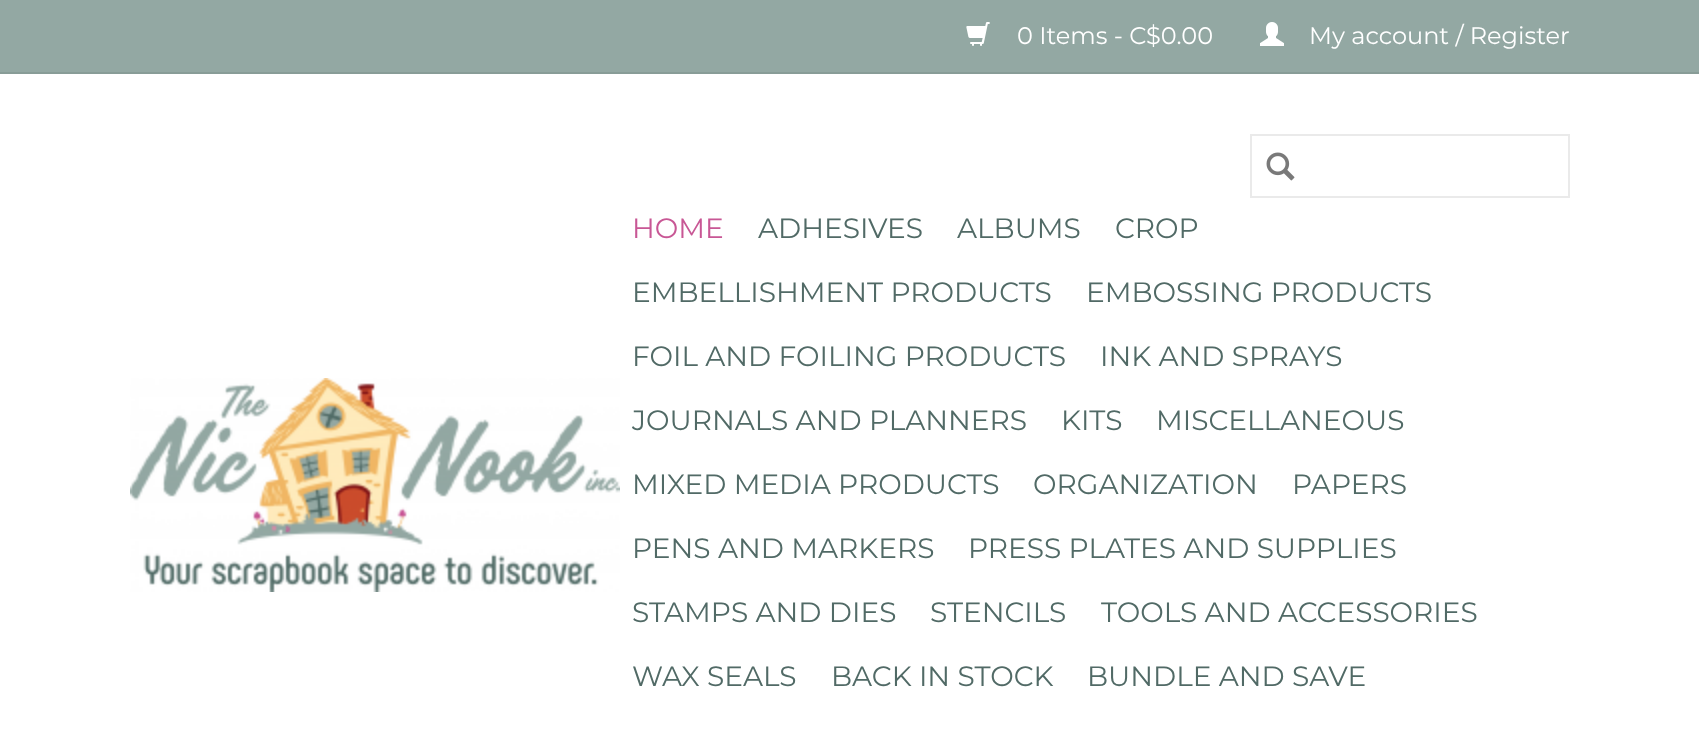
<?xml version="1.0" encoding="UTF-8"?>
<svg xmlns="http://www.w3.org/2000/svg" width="1699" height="742">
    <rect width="100%" height="100%" fill="#FFFFFF"/>
    <rect x="0" y="0" width="1699" height="72" fill="#93A8A3"/>
    <rect x="0" y="72" width="1699" height="2" fill="#889C97"/>
    <image x="966" y="22" width="24" height="24" href="img_01.png"/>
    <text x="1017" y="44" font-family="Montserrat" font-size="24" fill="#FFFFFF">0 Items - C$0.00</text>
    <image x="1260" y="22" width="24" height="24" href="img_02.png"/>
    <text x="1309" y="44" font-family="Montserrat" font-size="24" fill="#FFFFFF">My account / Register</text>
    <image x="130" y="378" width="490" height="214" href="img_03.png"/>
    <rect x="1251" y="135" width="318" height="62" fill="none" stroke="#EAEAEA" stroke-width="2"/>
    <image x="1266" y="152" width="29" height="29" href="img_04.png"/>
    <text x="632" y="238" font-family="Montserrat" font-size="28" fill="#C85795">HOME</text>
    <text x="758" y="238" font-family="Montserrat" font-size="28" fill="#516A66">ADHESIVES</text>
    <text x="957" y="238" font-family="Montserrat" font-size="28" fill="#516A66">ALBUMS</text>
    <text x="1115" y="238" font-family="Montserrat" font-size="28" fill="#516A66">CROP</text>
    <text x="632" y="302" font-family="Montserrat" font-size="28" fill="#516A66">EMBELLISHMENT PRODUCTS</text>
    <text x="1086" y="302" font-family="Montserrat" font-size="28" fill="#516A66">EMBOSSING PRODUCTS</text>
    <text x="632" y="366" font-family="Montserrat" font-size="28" fill="#516A66">FOIL AND FOILING PRODUCTS</text>
    <text x="1100" y="366" font-family="Montserrat" font-size="28" fill="#516A66">INK AND SPRAYS</text>
    <text x="632" y="430" font-family="Montserrat" font-size="28" fill="#516A66">JOURNALS AND PLANNERS</text>
    <text x="1061" y="430" font-family="Montserrat" font-size="28" fill="#516A66">KITS</text>
    <text x="1156" y="430" font-family="Montserrat" font-size="28" fill="#516A66">MISCELLANEOUS</text>
    <text x="632" y="494" font-family="Montserrat" font-size="28" fill="#516A66">MIXED MEDIA PRODUCTS</text>
    <text x="1033" y="494" font-family="Montserrat" font-size="28" fill="#516A66">ORGANIZATION</text>
    <text x="1292" y="494" font-family="Montserrat" font-size="28" fill="#516A66">PAPERS</text>
    <text x="632" y="558" font-family="Montserrat" font-size="28" fill="#516A66">PENS AND MARKERS</text>
    <text x="968" y="558" font-family="Montserrat" font-size="28" fill="#516A66">PRESS PLATES AND SUPPLIES</text>
    <text x="632" y="622" font-family="Montserrat" font-size="28" fill="#516A66">STAMPS AND DIES</text>
    <text x="930" y="622" font-family="Montserrat" font-size="28" fill="#516A66">STENCILS</text>
    <text x="1101" y="622" font-family="Montserrat" font-size="28" fill="#516A66">TOOLS AND ACCESSORIES</text>
    <text x="632" y="686" font-family="Montserrat" font-size="28" fill="#516A66">WAX SEALS</text>
    <text x="831" y="686" font-family="Montserrat" font-size="28" fill="#516A66">BACK IN STOCK</text>
    <text x="1087" y="686" font-family="Montserrat" font-size="28" fill="#516A66">BUNDLE AND SAVE</text>
</svg>
